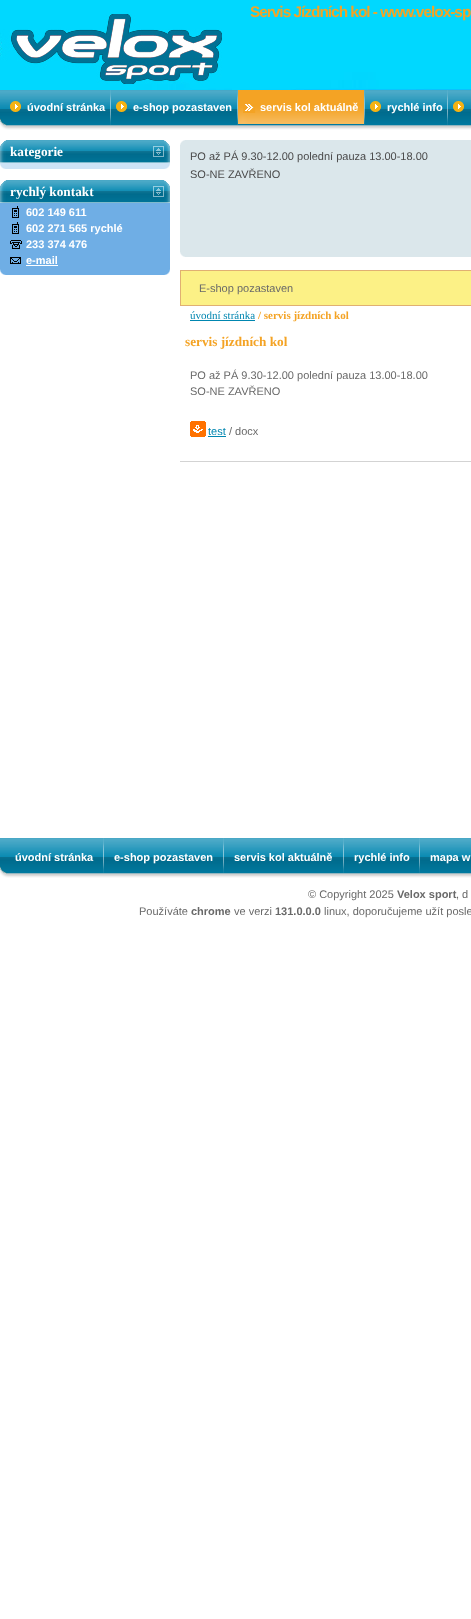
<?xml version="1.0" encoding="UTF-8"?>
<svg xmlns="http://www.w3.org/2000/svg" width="471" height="1619">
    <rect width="100%" height="100%" fill="#FFFFFF"/>
    <image x="0" y="0" width="471" height="90" href="img_01.png"/>
    <image x="0" y="14" width="222" height="70" href="img_02.png"/>
    <text x="250" y="17" font-family="Liberation Sans" font-size="15.4" font-weight="700" letter-spacing="-1" fill="#F4A324">Servis Jízdních kol - www.velox-sp</text>
    <rect x="180" y="140" width="291" height="117" fill="#DBE7EB"/>
    <text font-family="Liberation Sans" font-size="11" fill="#4A4A4A">
        <tspan x="190" y="160">PO až PÁ 9.30-12.00 polední pauza 13.00-18.00</tspan>
        <tspan x="190" y="178">SO-NE ZAVŘENO</tspan>
    </text>
    <rect x="0" y="90" width="471" height="36" fill="#0086B0"/>
    <image x="0" y="90" width="471" height="40" href="img_03.png"/>
    <image x="10" y="101" width="12" height="11" href="img_04.png"/>
    <text x="27" y="111" font-family="Liberation Sans" font-size="11" font-weight="700" fill="#FFFFFF">úvodní stránka</text>
    <image x="110" y="90" width="1" height="35" href="img_05.png"/>
    <image x="116" y="101" width="12" height="11" href="img_04.png"/>
    <text x="133" y="111" font-family="Liberation Sans" font-size="11" font-weight="700" fill="#FFFFFF">e-shop pozastaven</text>
    <image x="237" y="90" width="1" height="35" href="img_05.png"/>
    <rect x="238" y="90" width="126" height="34" fill="#F4A324"/>
    <image x="238" y="104" width="126" height="20" href="img_06.png"/>
    <text x="260" y="111" font-family="Liberation Sans" font-size="11" font-weight="700" fill="#FFFFFF">servis kol aktuálně</text>
    <image x="364" y="90" width="1" height="35" href="img_05.png"/>
    <image x="370" y="101" width="12" height="11" href="img_04.png"/>
    <text x="387" y="111" font-family="Liberation Sans" font-size="11" font-weight="700" fill="#FFFFFF">rychlé info</text>
    <image x="447" y="90" width="1" height="35" href="img_05.png"/>
    <image x="453" y="101" width="12" height="11" href="img_04.png"/>
    <rect x="0" y="163" width="170" height="6" fill="#CDE3F6"/>
    <rect x="0" y="140" width="170" height="23" fill="#0086B0"/>
    <image x="0" y="140" width="170" height="23" href="img_07.png"/>
    <text x="10" y="156" font-family="Liberation Serif" font-size="13.25" font-weight="700" fill="#FFFFFF">kategorie</text>
    <image x="153" y="146" width="11" height="11" href="img_08.png"/>
    <image x="0" y="163" width="6" height="6" href="img_09.png"/>
    <image x="164" y="163" width="6" height="6" href="img_10.png"/>
    <rect x="0" y="203" width="170" height="72" fill="#6FAEE5"/>
    <rect x="0" y="180" width="170" height="23" fill="#0086B0"/>
    <image x="0" y="180" width="170" height="23" href="img_07.png"/>
    <text x="10" y="196" font-family="Liberation Serif" font-size="13.25" font-weight="700" fill="#FFFFFF">rychlý kontakt</text>
    <image x="153" y="186" width="11" height="11" href="img_08.png"/>
    <image x="12" y="206" width="7" height="12" href="img_11.png"/>
    <text x="26" y="216" font-family="Liberation Sans" font-size="11" font-weight="700" fill="#FFFFFF">602 149 611</text>
    <image x="12" y="222" width="7" height="12" href="img_11.png"/>
    <text x="26" y="232" font-family="Liberation Sans" font-size="11" font-weight="700" fill="#FFFFFF">602 271 565 rychlé</text>
    <image x="10" y="240" width="12" height="9" href="img_12.png"/>
    <text x="26" y="248" font-family="Liberation Sans" font-size="11" font-weight="700" fill="#FFFFFF">233 374 476</text>
    <image x="10" y="257" width="11" height="7" href="img_13.png"/>
    <text x="26" y="264" font-family="Liberation Sans" font-size="11" font-weight="700" fill="#FFFFFF">e-mail</text>
    <rect x="26" y="265" width="32" height="1" fill="#FFFFFF"/>
    <image x="0" y="269" width="6" height="6" href="img_14.png"/>
    <image x="164" y="269" width="6" height="6" href="img_15.png"/>
    <image x="180" y="140" width="5" height="5" href="img_16.png"/>
    <image x="180" y="252" width="5" height="5" href="img_17.png"/>
    <rect x="180.5" y="270.5" width="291" height="35" fill="#FCF186" stroke="#E0B072"/>
    <text x="199" y="292" font-family="Liberation Sans" font-size="11" fill="#696969">E-shop pozastaven</text>
    <text x="190" y="319" font-family="Liberation Serif" font-size="11" fill="#0086B0">úvodní stránka</text>
    <rect x="190" y="320" width="65" height="1" fill="#0086B0"/>
    <text x="258" y="319" font-family="Liberation Serif" font-size="11" font-weight="700" fill="#F4A324">/ servis jízdních kol</text>
    <text x="185" y="346" font-family="Liberation Serif" font-size="13.25" font-weight="700" fill="#F4A324">servis jízdních kol</text>
    <text font-family="Liberation Sans" font-size="11" fill="#696969">
        <tspan x="190" y="379">PO až PÁ 9.30-12.00 polední pauza 13.00-18.00</tspan>
        <tspan x="190" y="395">SO-NE ZAVŘENO</tspan>
    </text>
    <image x="190" y="421" width="16" height="16" href="img_18.png"/>
    <text x="208" y="435" font-family="Liberation Sans" font-size="11" fill="#0086B0">test</text>
    <rect x="208" y="436" width="18" height="1" fill="#0086B0"/>
    <text x="229" y="435" font-family="Liberation Sans" font-size="11" fill="#696969">/ docx</text>
    <rect x="180" y="461" width="291" height="1" fill="#D3D3D3"/>
    <rect x="0" y="838" width="471" height="36" fill="#0086B0"/>
    <image x="0" y="838" width="471" height="40" href="img_03.png"/>
    <text x="15" y="861" font-family="Liberation Sans" font-size="11" font-weight="700" fill="#FFFFFF">úvodní stránka</text>
    <image x="103" y="838" width="1" height="35" href="img_05.png"/>
    <text x="114" y="861" font-family="Liberation Sans" font-size="11" font-weight="700" fill="#FFFFFF">e-shop pozastaven</text>
    <image x="223" y="838" width="1" height="35" href="img_05.png"/>
    <text x="234" y="861" font-family="Liberation Sans" font-size="11" font-weight="700" fill="#FFFFFF">servis kol aktuálně</text>
    <image x="343" y="838" width="1" height="35" href="img_05.png"/>
    <text x="354" y="861" font-family="Liberation Sans" font-size="11" font-weight="700" fill="#FFFFFF">rychlé info</text>
    <image x="419" y="838" width="1" height="35" href="img_05.png"/>
    <text x="430" y="861" font-family="Liberation Sans" font-size="11" font-weight="700" fill="#FFFFFF">mapa w</text>
    <text x="308" y="898" font-family="Liberation Sans" font-size="11" fill="#696969">© Copyright 2025</text>
    <text x="397" y="898" font-family="Liberation Sans" font-size="11" font-weight="700" fill="#696969">Velox sport</text>
    <text x="456" y="898" font-family="Liberation Sans" font-size="11" fill="#696969">, d</text>
    <text x="139" y="915" font-family="Liberation Sans" font-size="11" fill="#696969">Používáte</text>
    <text x="191" y="915" font-family="Liberation Sans" font-size="11" font-weight="700" fill="#696969">chrome</text>
    <text x="234" y="915" font-family="Liberation Sans" font-size="11" fill="#696969">ve verzi</text>
    <text x="275" y="915" font-family="Liberation Sans" font-size="11" font-weight="700" fill="#696969">131.0.0.0</text>
    <text x="324" y="915" font-family="Liberation Sans" font-size="11" fill="#696969">linux, doporučujeme užít posle</text>
</svg>
